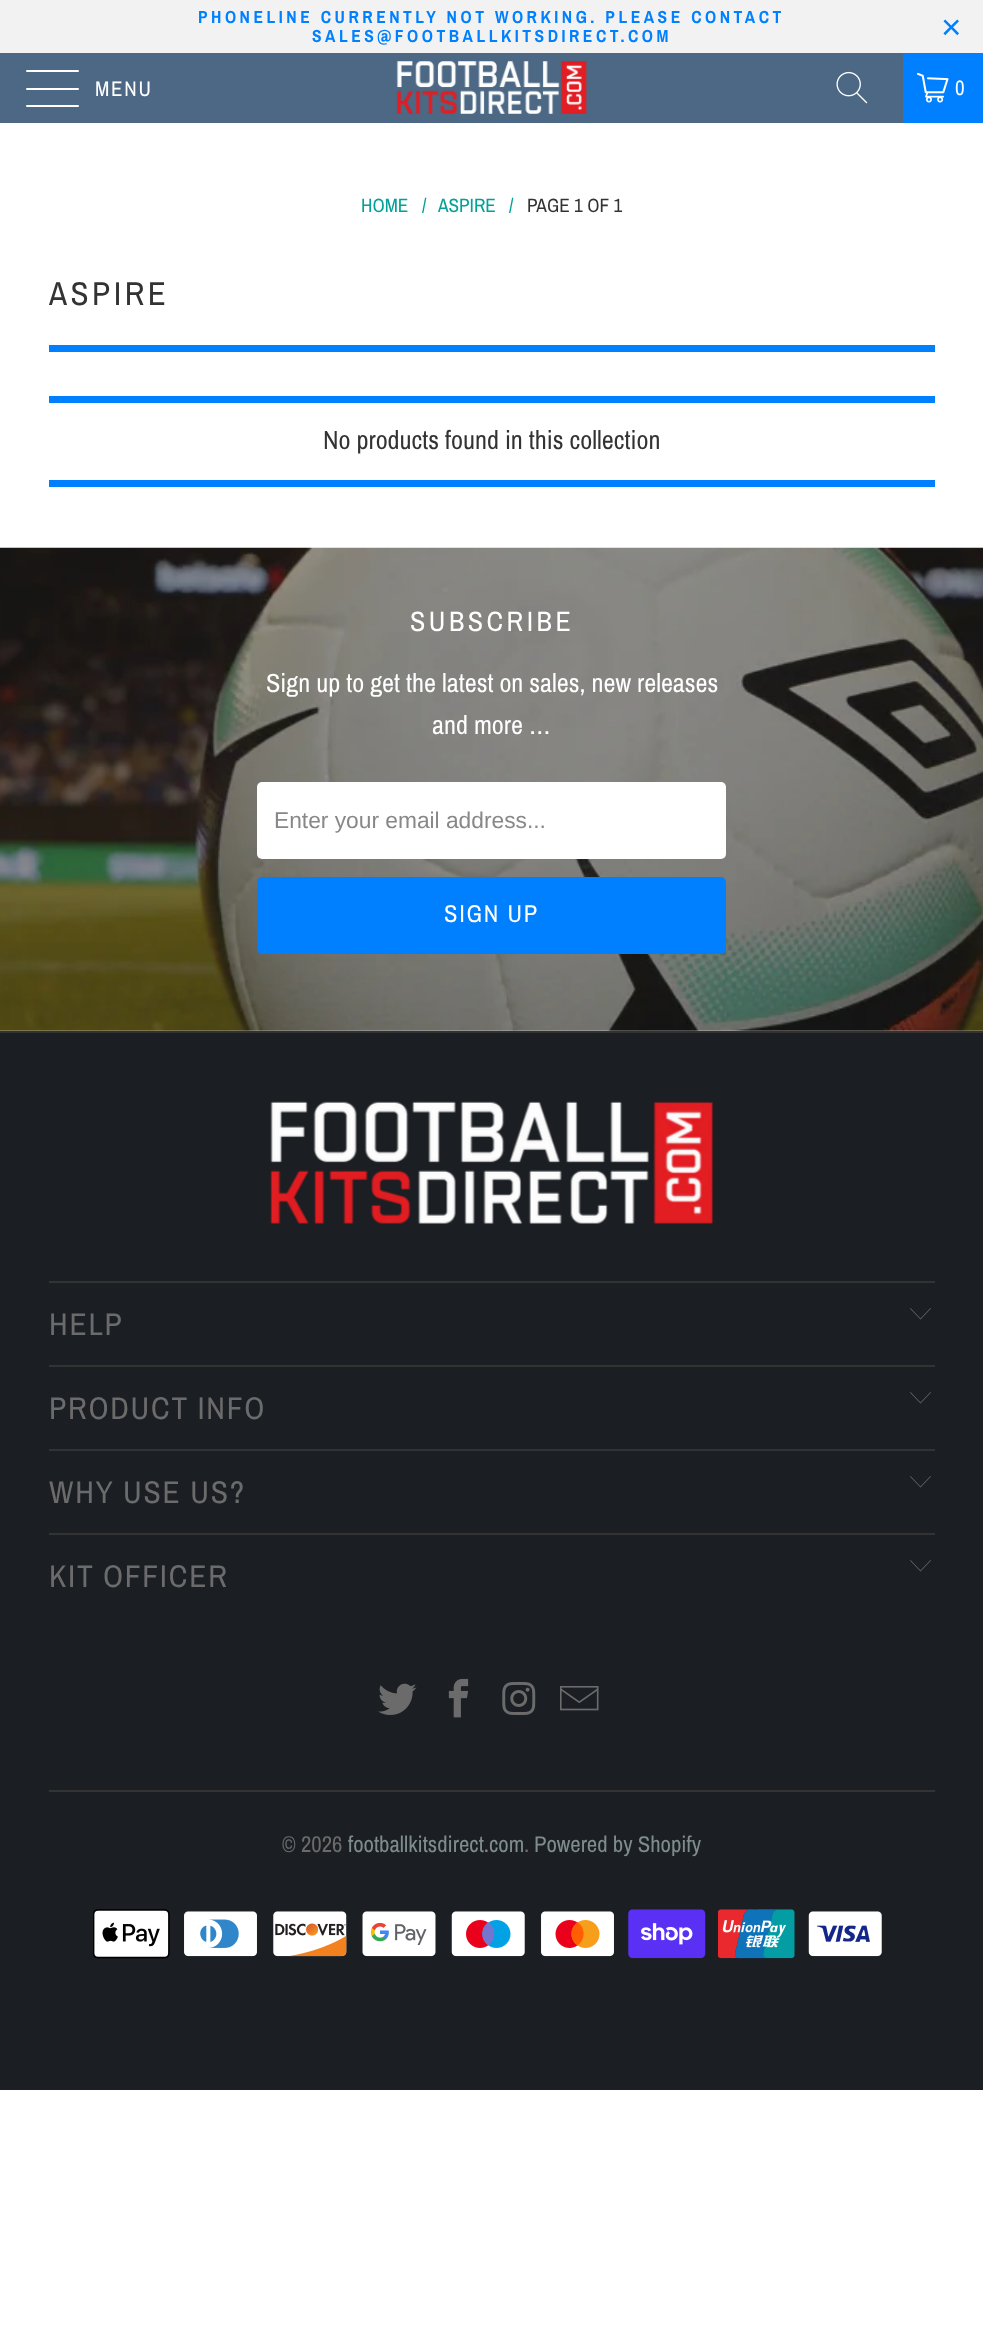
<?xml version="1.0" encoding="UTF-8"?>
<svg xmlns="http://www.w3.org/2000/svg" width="983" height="2330">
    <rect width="100%" height="100%" fill="#FFFFFF"/>
    <rect x="0" y="0" width="983" height="53" fill="#F2F2F2"/>
    <text x="198" y="23" font-family="Archivo Narrow" font-size="17.5" font-weight="700" letter-spacing="3.5" fill="#0080FF">PHONELINE CURRENTLY NOT WORKING. PLEASE CONTACT</text>
    <text x="312" y="42" font-family="Archivo Narrow" font-size="17.5" font-weight="700" letter-spacing="3.5" fill="#0080FF">SALES@FOOTBALLKITSDIRECT.COM</text>
    <text x="941" y="39" font-family="Liberation Sans" font-size="35" letter-spacing="3.5" fill="#0080FF">×</text>
    <rect x="0" y="53" width="903" height="70" fill="#4C6884"/>
    <rect x="26" y="70" width="53" height="2" rx="1" fill="#FFFFFF"/>
    <rect x="26" y="88" width="53" height="2" rx="1" fill="#FFFFFF"/>
    <rect x="26" y="105" width="53" height="2" rx="1" fill="#FFFFFF"/>
    <text x="95" y="96" font-family="Archivo Narrow" font-size="21" letter-spacing="1.75" fill="#FFFFFF">MENU</text>
    <image x="396" y="61" width="191" height="53" href="img_01.png"/>
    <image x="836" y="71" width="32" height="33" href="img_02.png"/>
    <rect x="903" y="53" width="80" height="70" fill="#0080FF"/>
    <image x="917" y="72" width="32" height="31" href="img_03.png"/>
    <text x="955" y="95" font-family="Archivo Narrow" font-size="21" letter-spacing="1.75" fill="#FFFFFF">0</text>
    <text x="361" y="212" font-family="Archivo Narrow" font-size="19.25" fill="#03A196">HOME</text>
    <text x="422" y="212" font-family="Archivo Narrow" font-size="19.25" fill="#03A196">/</text>
    <text x="438" y="212" font-family="Archivo Narrow" font-size="19.25" fill="#03A196">ASPIRE</text>
    <text x="509" y="212" font-family="Archivo Narrow" font-size="19.25" fill="#03A196">/</text>
    <text x="527" y="212" font-family="Archivo Narrow" font-size="19.25" fill="#333333">PAGE 1 OF 1</text>
    <text x="49" y="305" font-family="Archivo Narrow" font-size="33" letter-spacing="3.5" fill="#333333">ASPIRE</text>
    <rect x="49" y="345" width="886" height="7" fill="#0080FF"/>
    <rect x="49" y="396" width="886" height="7" fill="#0080FF"/>
    <rect x="49" y="480" width="886" height="7" fill="#0080FF"/>
    <text x="323" y="449" font-family="Archivo Narrow" font-size="26.25" fill="#333333">No products found in this collection</text>
    <image x="0" y="547" width="983" height="484" href="img_04.png"/>
    <text x="410" y="631" font-family="Archivo Narrow" font-size="28" letter-spacing="3.5" fill="#FFFFFF">SUBSCRIBE</text>
    <text x="266" y="692" font-family="Archivo Narrow" font-size="26.25" fill="#FFFFFF">Sign up to get the latest on sales, new releases</text>
    <text x="432" y="734" font-family="Archivo Narrow" font-size="26.25" fill="#FFFFFF">and more …</text>
    <rect x="257" y="782" width="469" height="77" rx="5" fill="#FFFFFF"/>
    <text x="274" y="828" font-family="Liberation Sans" font-size="22.75" fill="#888888">Enter your email address...</text>
    <rect x="258" y="878" width="467" height="75" rx="4" fill="#0080FF" stroke="#0080FF" stroke-width="2"/>
    <text x="444" y="922" font-family="Archivo Narrow" font-size="24.5" letter-spacing="1.75" fill="#FFFFFF">SIGN UP</text>
    <rect x="0" y="1033" width="983" height="1057" fill="#1B1F23"/>
    <rect x="0" y="1031" width="983" height="2" fill="#333333"/>
    <image x="270" y="1101" width="443" height="123" href="img_05.png"/>
    <rect x="49" y="1281" width="886" height="2" fill="#333333"/>
    <text x="49" y="1335" font-family="Archivo Narrow" font-size="31.5" letter-spacing="1.75" fill="#6B6B6B">HELP</text>
    <path d="M 920.5 1319.5 L 910 1308.5 L 910.5 1308 L 920.5 1318.5 L 930.5 1308 L 931 1308.5 Z" fill="#6B6B6B"/>
    <rect x="49" y="1365" width="886" height="2" fill="#333333"/>
    <text x="49" y="1419" font-family="Archivo Narrow" font-size="31.5" letter-spacing="1.75" fill="#6B6B6B">PRODUCT INFO</text>
    <path d="M 920.5 1403.5 L 910 1392.5 L 910.5 1392 L 920.5 1402.5 L 930.5 1392 L 931 1392.5 Z" fill="#6B6B6B"/>
    <rect x="49" y="1449" width="886" height="2" fill="#333333"/>
    <text x="49" y="1503" font-family="Archivo Narrow" font-size="31.5" letter-spacing="1.75" fill="#6B6B6B">WHY USE US?</text>
    <path d="M 920.5 1487.5 L 910 1476.5 L 910.5 1476 L 920.5 1486.5 L 930.5 1476 L 931 1476.5 Z" fill="#6B6B6B"/>
    <rect x="49" y="1533" width="886" height="2" fill="#333333"/>
    <text x="49" y="1587" font-family="Archivo Narrow" font-size="31.5" letter-spacing="1.75" fill="#6B6B6B">KIT OFFICER</text>
    <path d="M 920.5 1571.5 L 910 1560.5 L 910.5 1560 L 920.5 1570.5 L 930.5 1560 L 931 1560.5 Z" fill="#6B6B6B"/>
    <image x="378" y="1683" width="39" height="32" href="img_06.png"/>
    <image x="448" y="1678" width="21" height="40" href="img_07.png"/>
    <image x="502" y="1682" width="34" height="33" href="img_08.png"/>
    <image x="560" y="1686" width="39" height="25" href="img_09.png"/>
    <rect x="49" y="1790" width="886" height="2" fill="#333333"/>
    <text x="282" y="1852" font-family="Archivo Narrow" font-size="22.75" fill="#6B6B6B">© 2026</text>
    <text x="348" y="1852" font-family="Archivo Narrow" font-size="22.75" fill="#7F8C8D">footballkitsdirect.com</text>
    <text x="524" y="1852" font-family="Archivo Narrow" font-size="22.75" fill="#6B6B6B">.</text>
    <text x="534" y="1852" font-family="Archivo Narrow" font-size="22.75" fill="#7F8C8D">Powered by Shopify</text>
    <image x="93" y="1909" width="77" height="50" href="img_10.png"/>
    <image x="184" y="1911" width="73" height="46" href="img_11.png"/>
    <image x="273" y="1911" width="74" height="46" href="img_12.png"/>
    <image x="362" y="1911" width="74" height="46" href="img_13.png"/>
    <image x="451" y="1911" width="74" height="46" href="img_14.png"/>
    <image x="541" y="1911" width="73" height="46" href="img_15.png"/>
    <image x="628" y="1909" width="78" height="50" href="img_16.png"/>
    <image x="718" y="1909" width="77" height="50" href="img_17.png"/>
    <image x="808" y="1911" width="74" height="46" href="img_18.png"/>
</svg>
